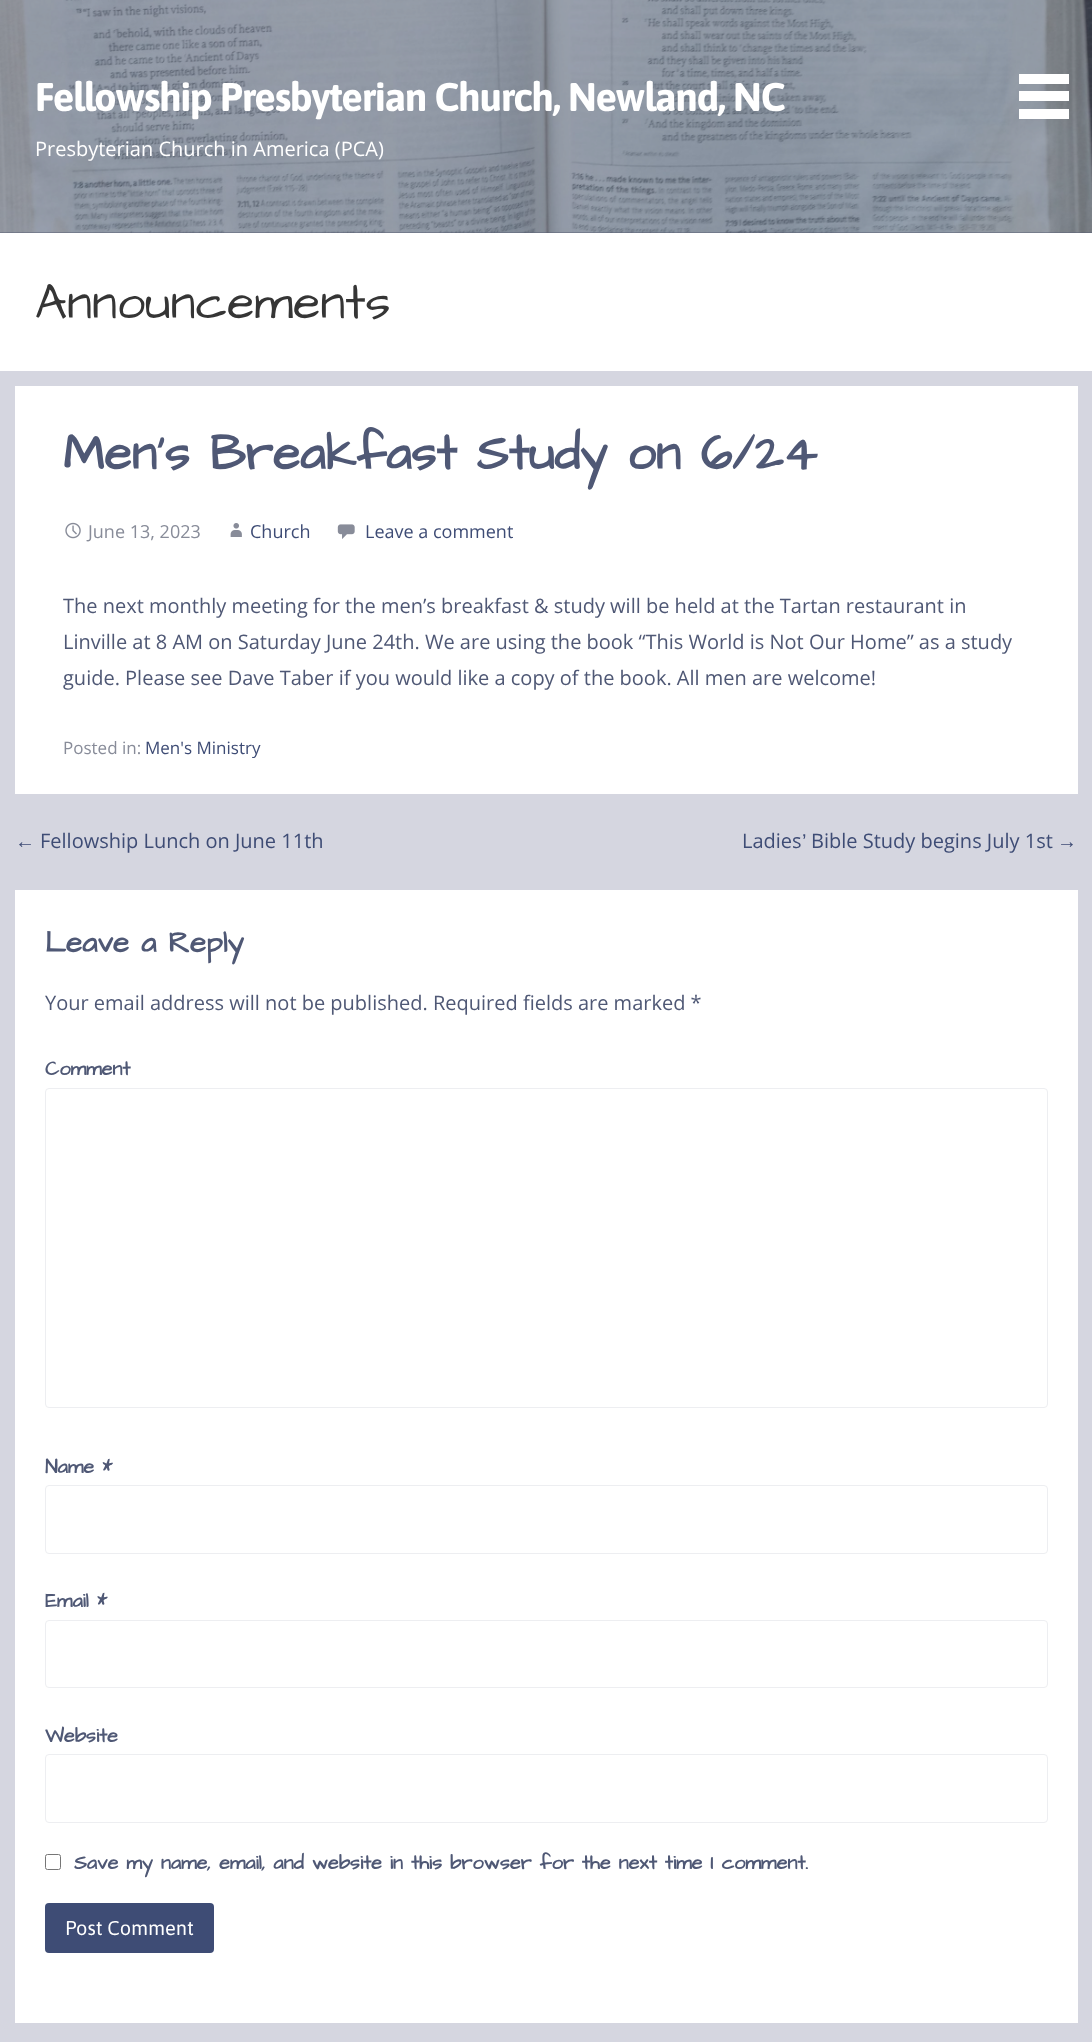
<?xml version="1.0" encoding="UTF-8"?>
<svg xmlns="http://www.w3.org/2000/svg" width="1092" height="2042">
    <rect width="100%" height="100%" fill="#D5D6E0"/>
    <rect x="0" y="232" width="1092" height="1" fill="#5A6175"/>
    <image x="0" y="0" width="1092" height="233" href="img_01.png"/>
    <text x="35" y="111" font-family="Asap" font-size="40" font-weight="700" letter-spacing="-1.2" fill="#FFFFFF">Fellowship Presbyterian Church, Newland, NC</text>
    <text x="35" y="156" font-family="Open Sans" font-size="20" fill="#FFFFFF">Presbyterian Church in America (PCA)</text>
    <rect x="1019" y="74" width="50" height="10" fill="#FFFFFF"/>
    <rect x="1019" y="91" width="50" height="10" fill="#FFFFFF"/>
    <rect x="1019" y="109" width="50" height="10" fill="#FFFFFF"/>
    <rect x="0" y="233" width="1092" height="138" fill="#FFFFFF"/>
    <text x="35" y="318" font-family="Architects Daughter" font-size="50" fill="#353535">Announcements</text>
    <rect x="15" y="386" width="1063" height="408" fill="#FFFFFF"/>
    <text x="63" y="469" font-family="Architects Daughter" font-size="50" font-weight="700" fill="#4F5875">Men’s Breakfast Study on 6/24</text>
    <image x="65" y="522" width="16" height="17" href="img_02.png"/>
    <text x="88" y="538" font-family="Open Sans" font-size="18" fill="#888C99">June 13, 2023</text>
    <image x="230" y="523" width="12" height="14" href="img_03.png"/>
    <text x="250" y="538" font-family="Open Sans" font-size="18" fill="#3E4C75">Church</text>
    <image x="337" y="524" width="18" height="15" href="img_04.png"/>
    <text x="365" y="538" font-family="Open Sans" font-size="18" fill="#3E4C75">Leave a comment</text>
    <text font-family="Open Sans" font-size="20" fill="#4F5875">
        <tspan x="63" y="613">The next monthly meeting for the men’s breakfast &amp; study will be held at the Tartan restaurant in</tspan>
        <tspan x="63" y="649">Linville at 8 AM on Saturday June 24th. We are using the book “This World is Not Our Home” as a study</tspan>
        <tspan x="63" y="685">guide. Please see Dave Taber if you would like a copy of the book. All men are welcome!</tspan>
    </text>
    <text x="63" y="754" font-family="Open Sans" font-size="17" fill="#888C99">Posted in:</text>
    <text x="145" y="754" font-family="Open Sans" font-size="17" fill="#3E4C75">Men's Ministry</text>
    <text x="15" y="848" font-family="Liberation Sans" font-size="20" fill="#3E4C75">←</text>
    <text x="40" y="848" font-family="Open Sans" font-size="20" fill="#3E4C75">Fellowship Lunch on June 11th</text>
    <text x="742" y="848" font-family="Open Sans" font-size="20" fill="#3E4C75">Ladies</text>
    <text x="802" y="848" font-family="Liberation Sans" font-size="20" fill="#3E4C75">’</text>
    <text x="811" y="848" font-family="Open Sans" font-size="20" fill="#3E4C75">Bible Study begins July 1st</text>
    <text x="1057" y="848" font-family="Liberation Sans" font-size="20" fill="#3E4C75">→</text>
    <rect x="15" y="890" width="1063" height="1133" fill="#FFFFFF"/>
    <text x="45" y="952" font-family="Architects Daughter" font-size="30" font-weight="700" fill="#4F5875">Leave a Reply</text>
    <text x="45" y="1010" font-family="Open Sans" font-size="20" fill="#4F5875">Your email address will not be published. Required fields are marked *</text>
    <text x="45" y="1075" font-family="Architects Daughter" font-size="20" font-weight="700" fill="#4F5875">Comment</text>
    <rect x="45.5" y="1088.5" width="1002" height="319" rx="3.5" fill="none" stroke="#EDEEF1"/>
    <text x="45" y="1473" font-family="Architects Daughter" font-size="20" font-weight="700" fill="#4F5875">Name *</text>
    <rect x="45.5" y="1485.5" width="1002" height="68" rx="3.5" fill="none" stroke="#EDEEF1"/>
    <text x="45" y="1607" font-family="Architects Daughter" font-size="20" font-weight="700" fill="#4F5875">Email *</text>
    <rect x="45.5" y="1620.5" width="1002" height="67" rx="3.5" fill="none" stroke="#EDEEF1"/>
    <text x="45" y="1742" font-family="Architects Daughter" font-size="20" font-weight="700" fill="#4F5875">Website</text>
    <rect x="45.5" y="1754.5" width="1002" height="68" rx="3.5" fill="none" stroke="#EDEEF1"/>
    <rect x="45.5" y="1854.5" width="15" height="15" rx="2" fill="none" stroke="#767676"/>
    <text x="74" y="1869" font-family="Architects Daughter" font-size="20" font-weight="700" fill="#4F5875">Save my name, email, and website in this browser for the next time I comment.</text>
    <rect x="45" y="1903" width="169" height="50" rx="4" fill="#3E4C75"/>
    <text x="65" y="1935" font-family="Asap" font-size="20" fill="#FFFFFF">Post Comment</text>
</svg>
